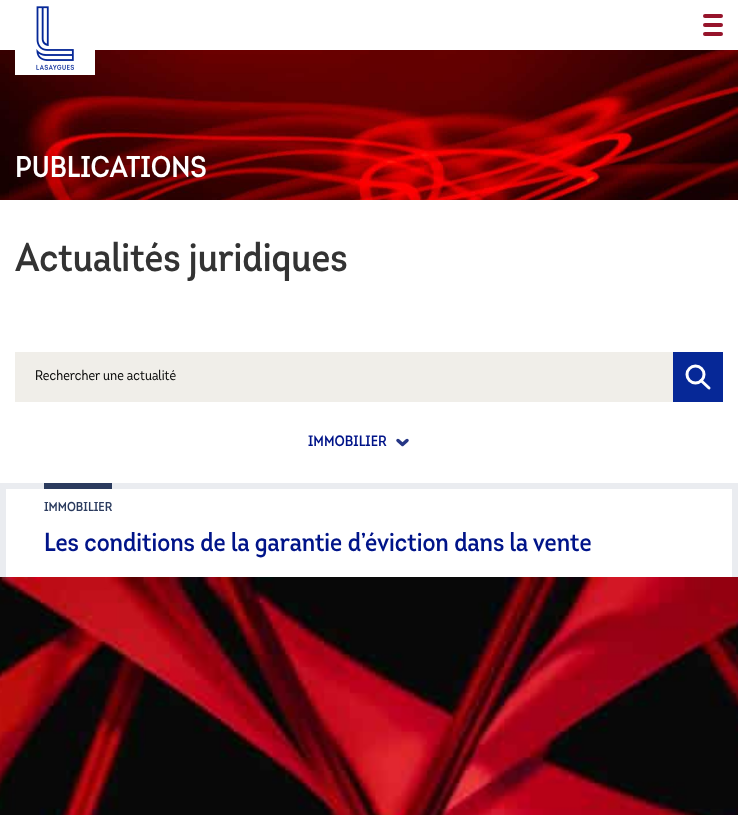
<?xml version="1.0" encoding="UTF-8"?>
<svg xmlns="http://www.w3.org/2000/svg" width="738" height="815">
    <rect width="100%" height="100%" fill="#FFFFFF"/>
    <image x="0" y="50" width="738" height="150" href="img_02.png"/>
    <rect x="15" y="50" width="80" height="25" fill="#FFFFFF"/>
    <image x="36" y="6" width="38" height="64" href="img_01.png"/>
    <path d="M 705 16 H 721 M 705 25 H 721 M 705 34 H 721" fill="none" stroke="#96142B" stroke-width="4" stroke-linecap="round"/>
    <text x="15" y="177" font-family="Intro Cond" font-size="30" font-weight="600" fill="#FFFFFF">PUBLICATIONS</text>
    <text x="15" y="271" font-family="Intro Cond" font-size="40" font-weight="600" fill="#333333">Actualités juridiques</text>
    <rect x="15" y="352" width="658" height="50" fill="#F0EEE9"/>
    <text x="35" y="380" font-family="Intro Cond" font-size="14" fill="#000000">Rechercher une actualité</text>
    <rect x="673" y="352" width="50" height="50" fill="#062897"/>
    <circle cx="695.5" cy="374.5" r="8.5" fill="none" stroke="#FFFFFF" stroke-width="3"/>
    <path d="M 701 380.5 L 709 388" fill="none" stroke="#FFFFFF" stroke-width="3" stroke-linecap="round"/>
    <text x="308" y="446" font-family="Intro Cond" font-size="15" font-weight="600" fill="#001489">IMMOBILIER</text>
    <path d="M 407 440.5 L 402.5 444.5 L 398 440.5" fill="none" stroke="#263786" stroke-width="3.5" stroke-linecap="round" stroke-linejoin="round"/>
    <rect x="0" y="483" width="738" height="94" fill="#EAECF0"/>
    <rect x="6" y="489" width="726" height="88" fill="#FFFFFF"/>
    <rect x="44" y="483" width="68" height="6" fill="#2B3B5E"/>
    <text x="44" y="511" font-family="Intro Cond" font-size="13" font-weight="600" fill="#2B3B5E">IMMOBILIER</text>
    <text x="44" y="551" font-family="Intro Cond" font-size="26" font-weight="600" fill="#001489">Les conditions de la garantie d’éviction dans la vente</text>
    <image x="0" y="577" width="738" height="238" href="img_03.png"/>
</svg>
